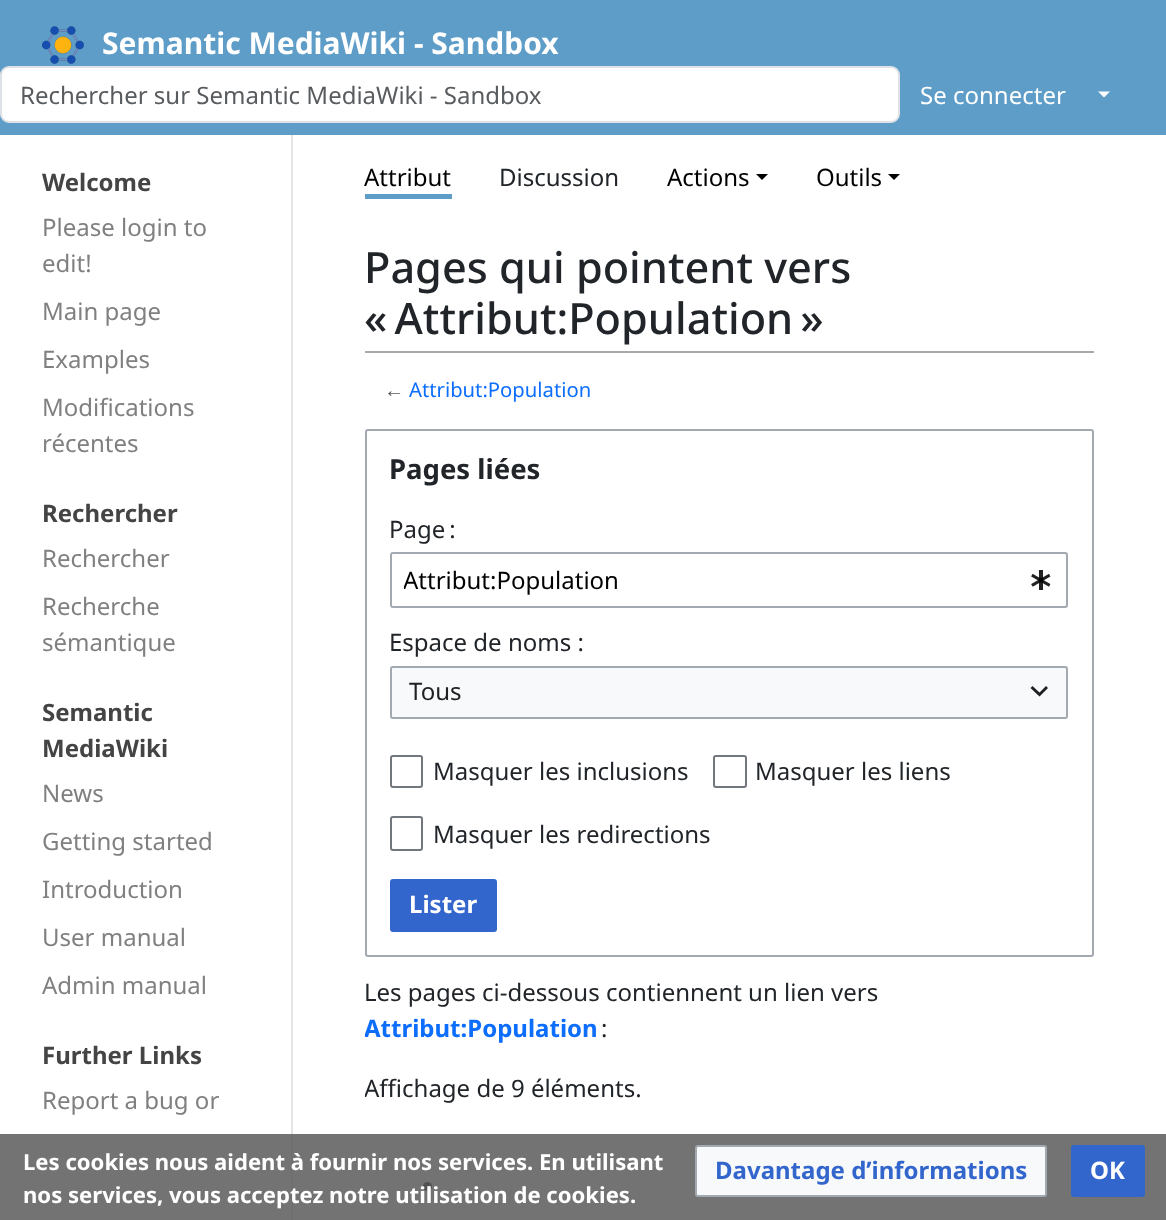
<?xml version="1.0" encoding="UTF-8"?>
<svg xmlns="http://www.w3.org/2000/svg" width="1166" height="1220">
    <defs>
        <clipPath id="clip1"><rect x="404" y="564" width="621" height="33"/></clipPath>
        <clipPath id="clip2"><rect x="365" y="195" width="729" height="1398"/></clipPath>
    </defs>
    <rect width="100%" height="100%" fill="#FFFFFF"/>
    <rect x="0" y="0" width="1166" height="135" fill="#5E9DC8"/>
    <image x="42" y="26" width="42" height="38" href="img_01.png"/>
    <text x="102" y="54" font-family="Noto Sans" font-size="30" font-weight="700" fill="#FFFFFF">Semantic MediaWiki - Sandbox</text>
    <rect x="1" y="67" width="898" height="55" rx="8" fill="#FFFFFF" stroke="#DEE2E6" stroke-width="2"/>
    <text x="20" y="104" font-family="Noto Sans" font-size="24" fill="#595C5F">Rechercher sur Semantic MediaWiki - Sandbox</text>
    <text x="920" y="104" font-family="Noto Sans" font-size="24" fill="#FFFFFF">Se connecter</text>
    <path d="M 1098 91.5 H 1110 L 1104 97.5 Z" fill="#FFFFFF"/>
    <text x="364" y="186" font-family="Noto Sans" font-size="24" fill="#000000">Attribut</text>
    <rect x="365" y="194" width="87" height="5" fill="#5E9DC8"/>
    <text x="499" y="186" font-family="Noto Sans" font-size="24" fill="#212529">Discussion</text>
    <text x="667" y="186" font-family="Noto Sans" font-size="24" fill="#000000">Actions</text>
    <path d="M 756 174 H 768 L 762 180 Z" fill="#000000"/>
    <text x="816" y="186" font-family="Noto Sans" font-size="24" fill="#000000">Outils</text>
    <path d="M 888 174 H 900 L 894 180 Z" fill="#000000"/>
    <rect x="365" y="351" width="729" height="2" fill="#AAAAAA"/>
    <text font-family="Noto Sans" font-size="43.25" font-weight="500" fill="#212529">
        <tspan x="364" y="283">Pages qui pointent vers</tspan>
        <tspan x="364" y="334">« Attribut:Population »</tspan>
    </text>
    <text x="384" y="397" font-family="Liberation Sans" font-size="20.25" fill="#555555">←</text>
    <text x="409" y="397" font-family="Noto Sans" font-size="20.25" fill="#0D6EFD">Attribut:Population</text>
    <rect x="366" y="430" width="727" height="526" rx="2" fill="none" stroke="#A2A9B1" stroke-width="2"/>
    <text x="389" y="479" font-family="Noto Sans" font-size="27.5" font-weight="700" fill="#212529">Pages liées</text>
    <text x="389" y="538" font-family="Noto Sans" font-size="24" fill="#212529">Page :</text>
    <rect x="391" y="553" width="676" height="54" rx="2" fill="none" stroke="#A2A9B1" stroke-width="2"/>
    <g clip-path="url(#clip1)">
        <text x="403" y="589" font-family="Noto Sans" font-size="24" fill="#000000">Attribut:Population</text>
    </g>
    <image x="1031" y="570" width="20" height="20" href="img_02.png"/>
    <text x="389" y="651" font-family="Noto Sans" font-size="24" fill="#212529">Espace de noms :</text>
    <rect x="390" y="666" width="678" height="53" fill="#F8F9FA"/>
    <rect x="391" y="667" width="676" height="51" rx="2" fill="none" stroke="#A2A9B1" stroke-width="2"/>
    <text x="409" y="700" font-family="Noto Sans" font-size="24" fill="#202122">Tous</text>
    <path d="M 1046 686 L 1039.5 692.5 L 1032.5 686 L 1030.5 688 L 1039.5 696.5 L 1048 688 Z" fill="#202021"/>
    <rect x="391" y="756" width="31" height="31" rx="2" fill="none" stroke="#72777D" stroke-width="2"/>
    <text x="433" y="780" font-family="Noto Sans" font-size="24" fill="#212529">Masquer les inclusions</text>
    <rect x="714" y="756" width="32" height="31" rx="2" fill="none" stroke="#72777D" stroke-width="2"/>
    <text x="755" y="780" font-family="Noto Sans" font-size="24" fill="#212529">Masquer les liens</text>
    <rect x="391" y="817" width="31" height="33" rx="2" fill="none" stroke="#72777D" stroke-width="2"/>
    <text x="433" y="843" font-family="Noto Sans" font-size="24" fill="#212529">Masquer les redirections</text>
    <rect x="391" y="880" width="105" height="51" rx="2" fill="#3366CC" stroke="#3366CC" stroke-width="2"/>
    <text x="409" y="913" font-family="Noto Sans" font-size="24" font-weight="700" fill="#FFFFFF">Lister</text>
    <text x="364" y="1001" font-family="Noto Sans" font-size="24" fill="#212529">Les pages ci-dessous contiennent un lien vers</text>
    <g clip-path="url(#clip2)">
        <text x="364" y="1037" font-family="Noto Sans" font-size="24" font-weight="700" fill="#0D6EFD">Attribut:Population</text>
    </g>
    <text x="601" y="1037" font-family="Noto Sans" font-size="24" fill="#212529">:</text>
    <g clip-path="url(#clip2)">
        <text x="364" y="1097" font-family="Noto Sans" font-size="24" fill="#212529">Affichage de 9 éléments.</text>
    </g>
    <circle cx="427.5" cy="1186.5" r="4.5" fill="#212529"/>
    <rect x="291" y="135" width="2" height="1085" fill="#E5E5E5"/>
    <rect x="0" y="1134" width="1166" height="86" fill="#5A5A5A" fill-opacity="0.85"/>
    <text font-family="Noto Sans" font-size="22.1" font-weight="700" fill="#FFFFFF">
        <tspan x="23" y="1170">Les cookies nous aident à fournir nos services. En utilisant</tspan>
        <tspan x="23" y="1203">nos services, vous acceptez notre utilisation de cookies.</tspan>
    </text>
    <rect x="696" y="1146" width="350" height="50" rx="2" fill="#F8F9FA" stroke="#A2A9B1" stroke-width="2"/>
    <text x="715" y="1179" font-family="Noto Sans" font-size="24" font-weight="700" fill="#3366CC">Davantage d’informations</text>
    <rect x="1072" y="1146" width="72" height="50" rx="2" fill="#3366CC" stroke="#3366CC" stroke-width="2"/>
    <text x="1090" y="1179" font-family="Noto Sans" font-size="24" font-weight="700" fill="#FFFFFF">OK</text>
    <text x="42" y="191" font-family="Noto Sans" font-size="24" font-weight="700" fill="#444444">Welcome</text>
    <text font-family="Noto Sans" font-size="24" fill="#808080">
        <tspan x="42" y="236">Please login to</tspan>
        <tspan x="42" y="272">edit!</tspan>
    </text>
    <text x="42" y="320" font-family="Noto Sans" font-size="24" fill="#808080">Main page</text>
    <text x="42" y="368" font-family="Noto Sans" font-size="24" fill="#808080">Examples</text>
    <text font-family="Noto Sans" font-size="24" fill="#808080">
        <tspan x="42" y="416">Modifications</tspan>
        <tspan x="42" y="452">récentes</tspan>
    </text>
    <text x="42" y="522" font-family="Noto Sans" font-size="24" font-weight="700" fill="#444444">Rechercher</text>
    <text x="42" y="567" font-family="Noto Sans" font-size="24" fill="#808080">Rechercher</text>
    <text font-family="Noto Sans" font-size="24" fill="#808080">
        <tspan x="42" y="615">Recherche</tspan>
        <tspan x="42" y="651">sémantique</tspan>
    </text>
    <text font-family="Noto Sans" font-size="24" font-weight="700" fill="#444444">
        <tspan x="42" y="721">Semantic</tspan>
        <tspan x="42" y="757">MediaWiki</tspan>
    </text>
    <text x="42" y="802" font-family="Noto Sans" font-size="24" fill="#808080">News</text>
    <text x="42" y="850" font-family="Noto Sans" font-size="24" fill="#808080">Getting started</text>
    <text x="42" y="898" font-family="Noto Sans" font-size="24" fill="#808080">Introduction</text>
    <text x="42" y="946" font-family="Noto Sans" font-size="24" fill="#808080">User manual</text>
    <text x="42" y="994" font-family="Noto Sans" font-size="24" fill="#808080">Admin manual</text>
    <text x="42" y="1064" font-family="Noto Sans" font-size="24" font-weight="700" fill="#444444">Further Links</text>
    <text x="42" y="1109" font-family="Noto Sans" font-size="24" fill="#808080">Report a bug or</text>
</svg>
